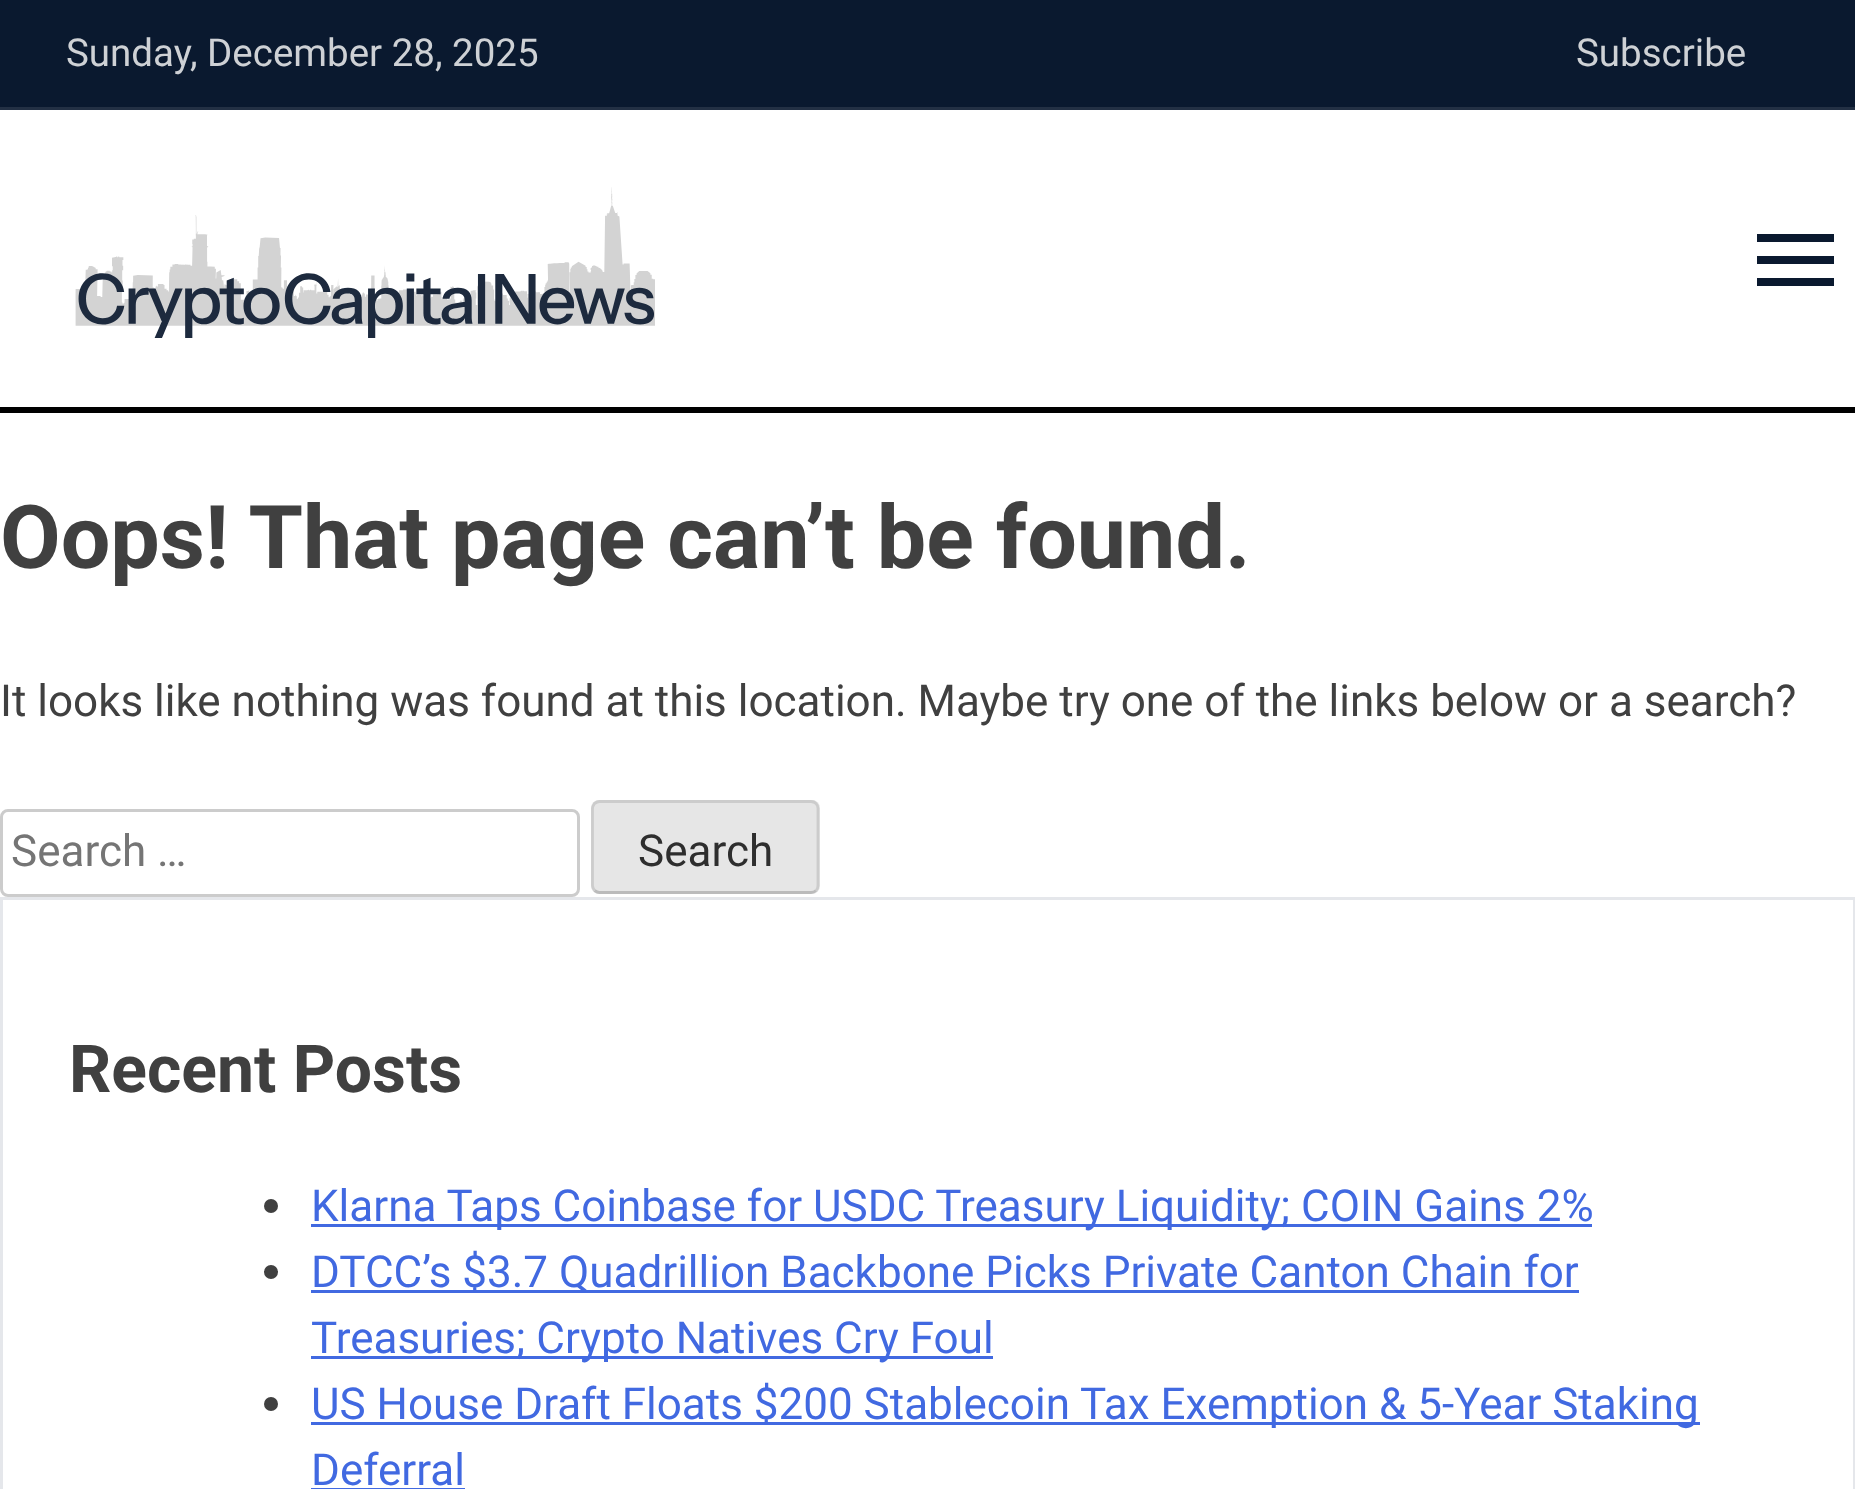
<?xml version="1.0" encoding="UTF-8"?>
<svg xmlns="http://www.w3.org/2000/svg" width="1855" height="1489">
    <rect width="100%" height="100%" fill="#FFFFFF"/>
    <rect x="0" y="0" width="1855" height="107" fill="#0A192F"/>
    <rect x="0" y="107" width="1855" height="3" fill="#233044"/>
    <text x="66" y="66" font-family="Roboto" font-size="38.5" fill="#CED1D5">Sunday, December 28, 2025</text>
    <text x="1576" y="66" font-family="Roboto" font-size="38.5" fill="#CED1D5">Subscribe</text>
    <rect x="0" y="407" width="1855" height="6" fill="#000000"/>
    <image x="75" y="187" width="580" height="151" href="img_01.png"/>
    <rect x="1757" y="234" width="77" height="8" fill="#0A192F"/>
    <rect x="1757" y="256" width="77" height="8" fill="#0A192F"/>
    <rect x="1757" y="278" width="77" height="8" fill="#0A192F"/>
    <text x="0" y="568" font-family="Roboto" font-size="88" font-weight="700" fill="#404040">Oops! That page can’t be found.</text>
    <text x="0" y="716" font-family="Roboto" font-size="44" fill="#404040">It looks like nothing was found at this location. Maybe try one of the links below or a search?</text>
    <rect x="1.5" y="810.5" width="577" height="85" rx="6.5" fill="none" stroke="#CCCCCC" stroke-width="3"/>
    <text x="11" y="866" font-family="Roboto" font-size="44" fill="#757575">Search …</text>
    <rect x="591" y="800" width="229" height="94" rx="8" fill="#E6E6E6"/>
    <path d="M 816 890.5 C 815 891.5 813 892.5 811 892.5 H 599.5 C 597.5 892.5 596 891.5 594.5 890.5" fill="none" stroke="#BBBBBB" stroke-width="2.8"/>
    <path d="M 594.5 890.5 C 593.5 889 592.5 887.5 592.5 885.5 V 808.5 C 592.5 806.5 593.5 805 594.5 803.5 C 596 802.5 597.5 801.5 599.5 801.5 H 811 C 813 801.5 815 802.5 816 803.5 C 817.5 805 818 806.5 818 808.5 V 885.5 C 818 887.5 817.5 889 816 890.5" fill="none" stroke="#CCCCCC" stroke-width="2.8"/>
    <text x="638" y="866" font-family="Roboto" font-size="44" fill="#2E2E2E">Search</text>
    <rect x="1.5" y="898.5" width="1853" height="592" fill="none" stroke="#E5E7EB" stroke-width="3"/>
    <text x="69" y="1092" font-family="Roboto" font-size="66" font-weight="700" fill="#404040">Recent Posts</text>
    <circle cx="271" cy="1206" r="7" fill="#404040"/>
    <rect x="311" y="1224" width="1281" height="3" fill="#4169E1"/>
    <text x="311" y="1221" font-family="Roboto" font-size="44" fill="#4169E1">Klarna Taps Coinbase for USDC Treasury Liquidity; COIN Gains 2%</text>
    <circle cx="271" cy="1272" r="7" fill="#404040"/>
    <rect x="311" y="1290" width="1268" height="3" fill="#4169E1"/>
    <text x="311" y="1287" font-family="Roboto" font-size="44" fill="#4169E1">DTCC’s $3.7 Quadrillion Backbone Picks Private Canton Chain for</text>
    <rect x="311" y="1356" width="682" height="3" fill="#4169E1"/>
    <text x="311" y="1353" font-family="Roboto" font-size="44" fill="#4169E1">Treasuries; Crypto Natives Cry Foul</text>
    <circle cx="271" cy="1404" r="7" fill="#404040"/>
    <rect x="311" y="1422" width="1389" height="3" fill="#4169E1"/>
    <text font-family="Roboto" font-size="44" fill="#4169E1">
        <tspan x="311" y="1419">US House Draft Floats $200 Stablecoin Tax Exemption &amp; 5-Year Staking</tspan>
        <tspan x="311" y="1485">Deferral</tspan>
    </text>
    <rect x="311" y="1488" width="154" height="1" fill="#4169E1"/>
</svg>
